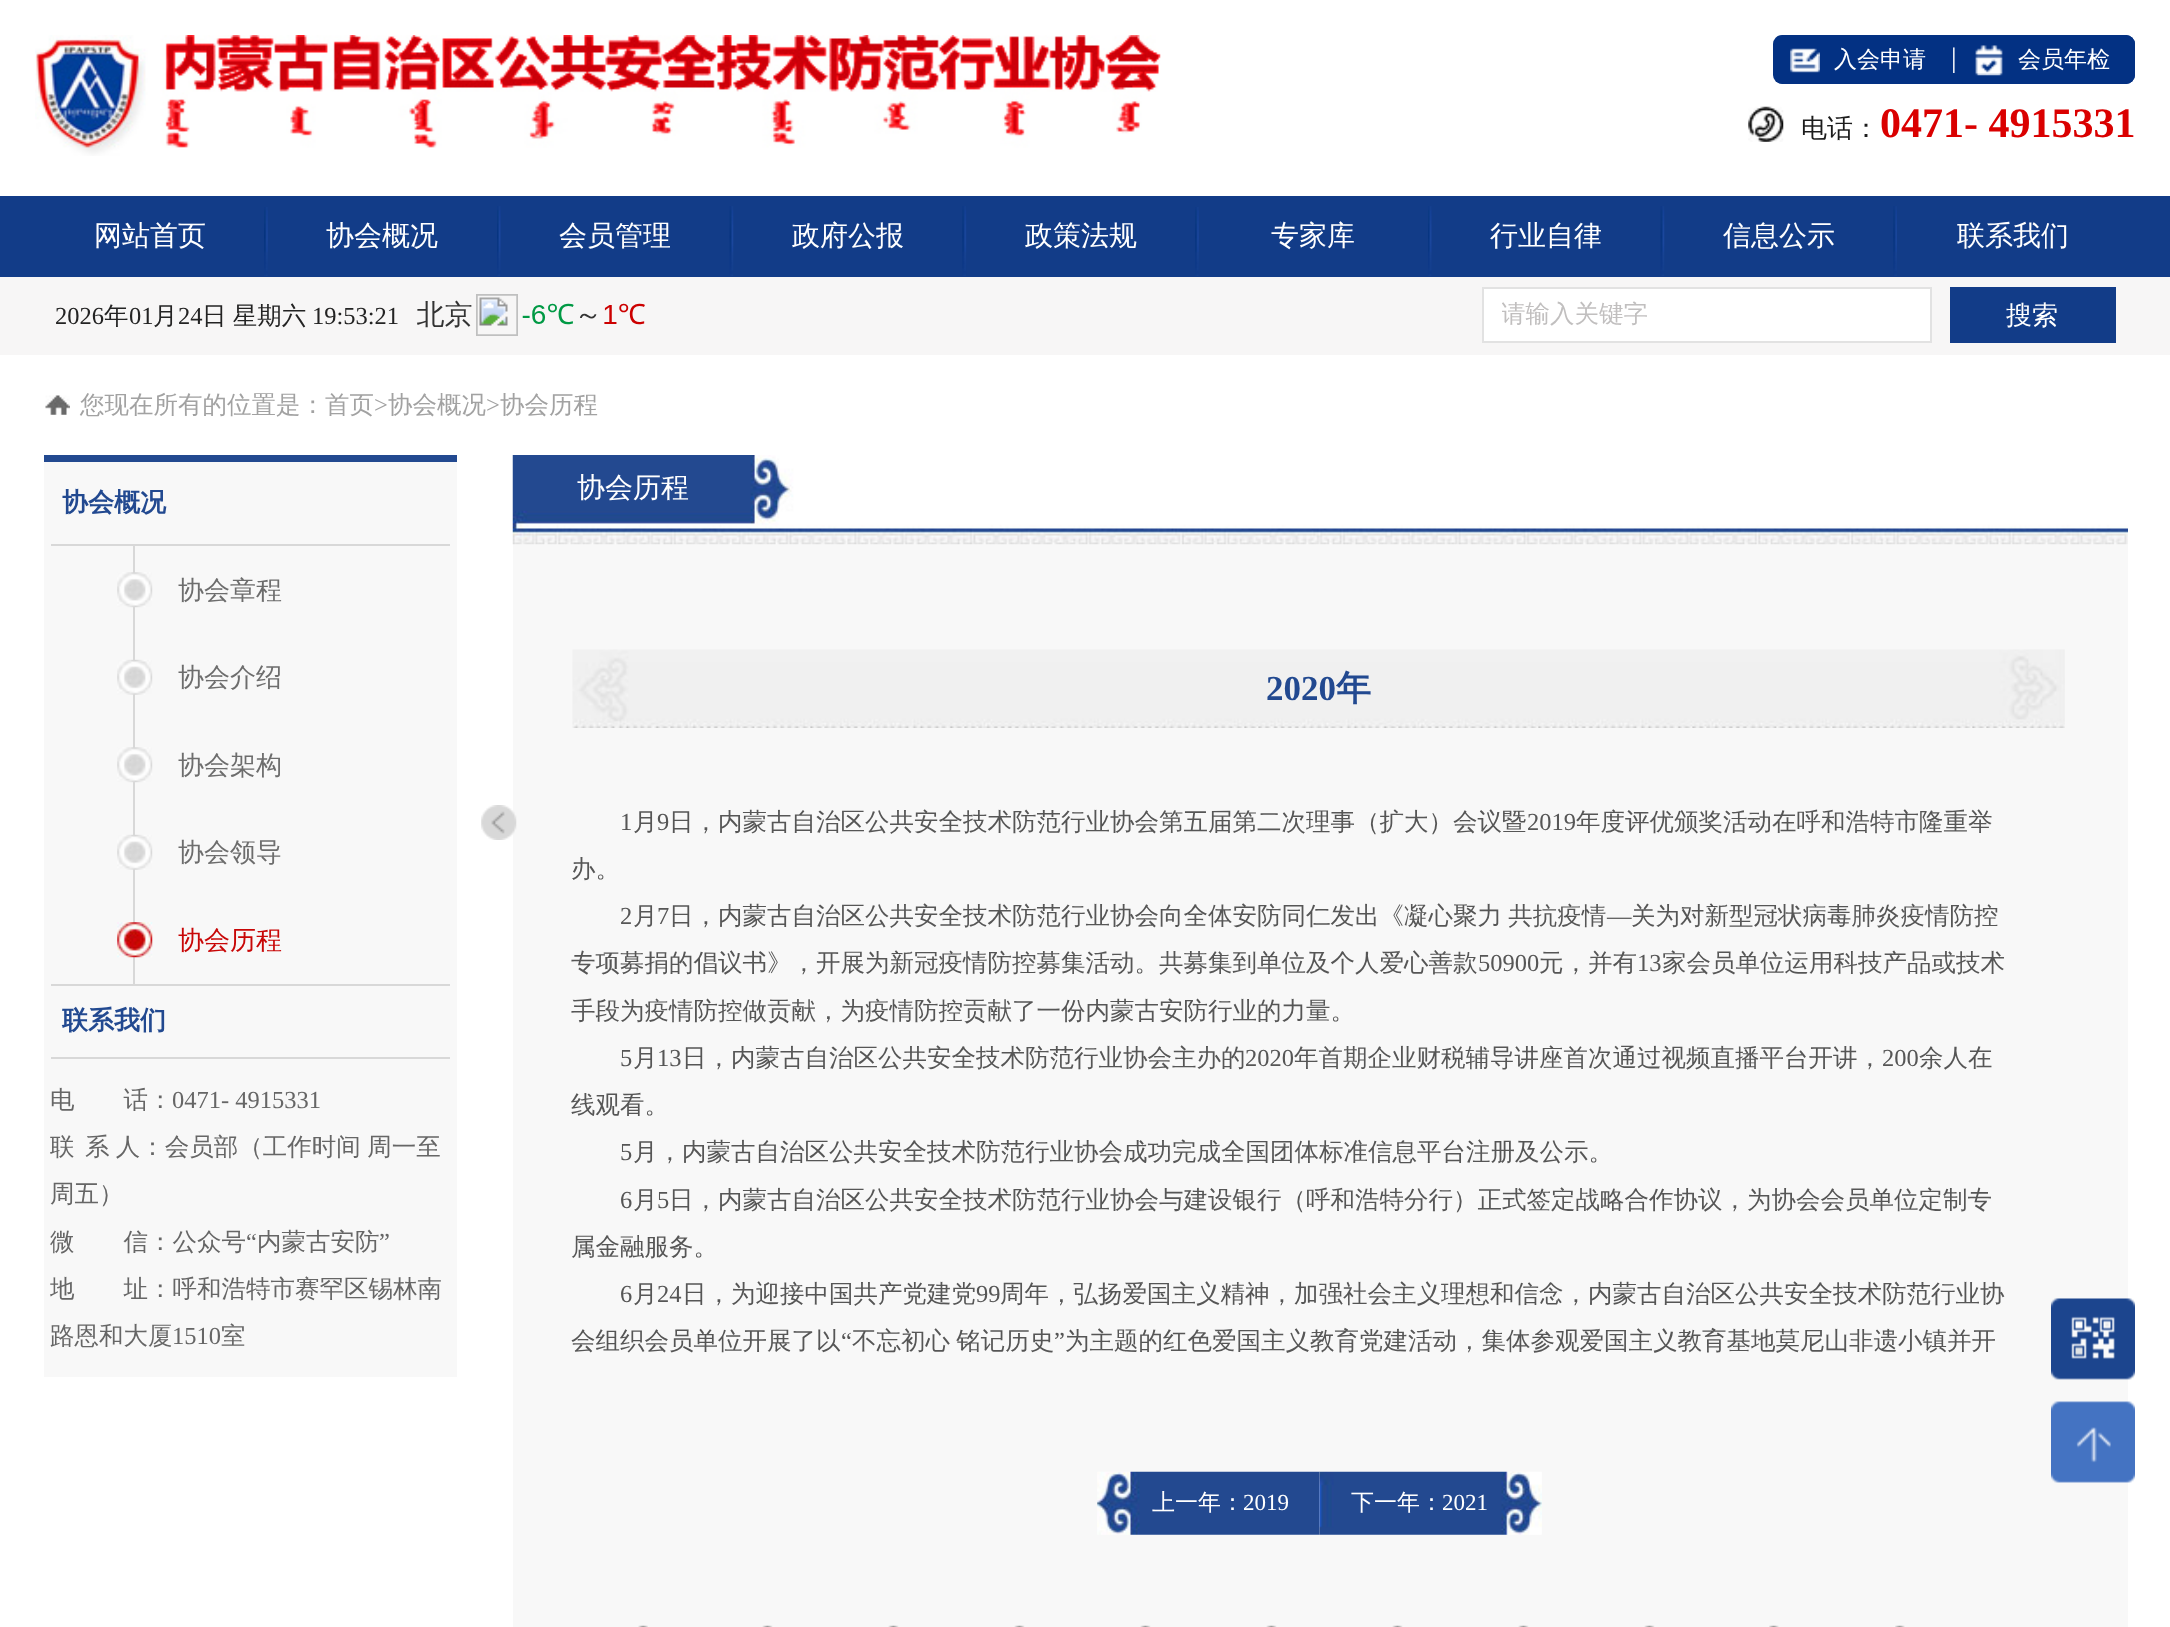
<?xml version="1.0" encoding="UTF-8"?>
<svg xmlns="http://www.w3.org/2000/svg" width="2170" height="1627">
    <defs>
        <clipPath id="clip1"><rect x="1502" y="299" width="411" height="32"/></clipPath>
    </defs>
    <rect width="100%" height="100%" fill="#FFFFFF"/>
    <image x="35" y="35" width="1126" height="121" href="img_01.png"/>
    <rect x="1773" y="35" width="362" height="49" rx="9" fill="#033183"/>
    <image x="1790" y="48" width="30" height="25" href="img_02.png"/>
    <text x="1834" y="67" font-family="WenQuanYi Zen Hei" font-size="23" font-weight="500" fill="#FFFFFF">入会申请</text>
    <text x="1951" y="67" font-family="Liberation Serif" font-size="28" fill="#FFFFFF">|</text>
    <rect x="1957" y="35" width="178" height="49" rx="9" fill="#033183"/>
    <image x="1975" y="45" width="28" height="31" href="img_03.png"/>
    <text x="2018" y="67" font-family="WenQuanYi Zen Hei" font-size="23" font-weight="500" fill="#FFFFFF">会员年检</text>
    <image x="1748" y="106" width="36" height="36" href="img_04.png"/>
    <text x="1801" y="137" font-family="WenQuanYi Zen Hei" font-size="26" font-weight="500" fill="#1C1C1C">电话：</text>
    <text x="1880" y="137" font-family="Liberation Serif" font-size="42" font-weight="700" fill="#DA0000">0471- 4915331</text>
    <rect x="0" y="196" width="2170" height="81" fill="#123C88"/>
    <text x="94" y="245" font-family="WenQuanYi Zen Hei" font-size="28" font-weight="500" fill="#FFFFFF">网站首页</text>
    <image x="264" y="207" width="4" height="69" href="img_05.png"/>
    <text x="326" y="245" font-family="WenQuanYi Zen Hei" font-size="28" font-weight="500" fill="#FFFFFF">协会概况</text>
    <image x="497" y="206" width="4" height="70" href="img_06.png"/>
    <text x="559" y="245" font-family="WenQuanYi Zen Hei" font-size="28" font-weight="500" fill="#FFFFFF">会员管理</text>
    <image x="729" y="206" width="5" height="70" href="img_07.png"/>
    <text x="792" y="245" font-family="WenQuanYi Zen Hei" font-size="28" font-weight="500" fill="#FFFFFF">政府公报</text>
    <image x="962" y="206" width="5" height="70" href="img_08.png"/>
    <text x="1025" y="245" font-family="WenQuanYi Zen Hei" font-size="28" font-weight="500" fill="#FFFFFF">政策法规</text>
    <image x="1195" y="207" width="4" height="69" href="img_09.png"/>
    <text x="1271" y="245" font-family="WenQuanYi Zen Hei" font-size="28" font-weight="500" fill="#FFFFFF">专家库</text>
    <image x="1428" y="206" width="4" height="70" href="img_06.png"/>
    <text x="1490" y="245" font-family="WenQuanYi Zen Hei" font-size="28" font-weight="500" fill="#FFFFFF">行业自律</text>
    <image x="1660" y="206" width="5" height="70" href="img_07.png"/>
    <text x="1723" y="245" font-family="WenQuanYi Zen Hei" font-size="28" font-weight="500" fill="#FFFFFF">信息公示</text>
    <image x="1893" y="206" width="4" height="70" href="img_10.png"/>
    <text x="1957" y="245" font-family="WenQuanYi Zen Hei" font-size="28" font-weight="500" fill="#FFFFFF">联系我们</text>
    <rect x="0" y="277" width="2170" height="78" fill="#F7F6F6"/>
    <text x="55" y="324" font-family="Liberation Serif" font-size="24.5" fill="#232323">2026</text>
    <text x="104" y="324" font-family="WenQuanYi Zen Hei" font-size="24.5" font-weight="500" fill="#232323">年</text>
    <text x="129" y="324" font-family="Liberation Serif" font-size="24.5" fill="#232323">01</text>
    <text x="153" y="324" font-family="WenQuanYi Zen Hei" font-size="24.5" font-weight="500" fill="#232323">月</text>
    <text x="178" y="324" font-family="Liberation Serif" font-size="24.5" fill="#232323">24</text>
    <text x="202" y="324" word-spacing="-1" font-family="WenQuanYi Zen Hei" font-size="24.5" font-weight="500" fill="#232323">日 星期六</text>
    <text x="312" y="324" font-family="Liberation Serif" font-size="24.5" fill="#232323">19:53:21</text>
    <image x="417" y="294" width="228" height="42" href="img_11.png"/>
    <rect x="1483" y="288" width="448" height="54" fill="#FFFFFF" stroke="#E2E2E2" stroke-width="2"/>
    <g clip-path="url(#clip1)">
        <text x="1501" y="322" font-family="WenQuanYi Zen Hei" font-size="24.5" font-weight="500" fill="#C1BFBF">请输入关键字</text>
    </g>
    <rect x="1950" y="287" width="166" height="56" fill="#123C88"/>
    <text x="2006" y="324" font-family="WenQuanYi Zen Hei" font-size="26" font-weight="500" fill="#FFFFFF">搜索</text>
    <image x="45" y="395" width="25" height="20" href="img_12.png"/>
    <text x="80" y="413" font-family="WenQuanYi Zen Hei" font-size="24.5" font-weight="500" fill="#A2A2A2">您现在所有的位置是：首页</text>
    <text x="374" y="413" font-family="Liberation Serif" font-size="24.5" fill="#A2A2A2">&gt;</text>
    <text x="388" y="413" font-family="WenQuanYi Zen Hei" font-size="24.5" font-weight="500" fill="#A2A2A2">协会概况</text>
    <text x="486" y="413" font-family="Liberation Serif" font-size="24.5" fill="#A2A2A2">&gt;</text>
    <text x="500" y="413" font-family="WenQuanYi Zen Hei" font-size="24.5" font-weight="500" fill="#A2A2A2">协会历程</text>
    <rect x="44" y="462" width="413" height="915" fill="#F8F8F8"/>
    <rect x="44" y="455" width="413" height="7" fill="#224990"/>
    <rect x="51" y="544" width="399" height="2" fill="#D8D8D8"/>
    <text x="62" y="511" font-family="WenQuanYi Zen Hei" font-size="26" font-weight="700" fill="#224990">协会概况</text>
    <rect x="51" y="984" width="399" height="2" fill="#D8D8D8"/>
    <rect x="133" y="546" width="2" height="438" fill="#D8D8D8"/>
    <image x="117" y="572" width="36" height="36" href="img_13.png"/>
    <text x="178" y="599" font-family="WenQuanYi Zen Hei" font-size="26" font-weight="500" fill="#6D6D6D">协会章程</text>
    <image x="117" y="659" width="36" height="36" href="img_14.png"/>
    <text x="178" y="686" font-family="WenQuanYi Zen Hei" font-size="26" font-weight="500" fill="#6D6D6D">协会介绍</text>
    <image x="117" y="747" width="36" height="36" href="img_13.png"/>
    <text x="178" y="774" font-family="WenQuanYi Zen Hei" font-size="26" font-weight="500" fill="#6D6D6D">协会架构</text>
    <image x="117" y="834" width="36" height="36" href="img_14.png"/>
    <text x="178" y="861" font-family="WenQuanYi Zen Hei" font-size="26" font-weight="500" fill="#6D6D6D">协会领导</text>
    <image x="117" y="922" width="36" height="36" href="img_15.png"/>
    <text x="178" y="949" font-family="WenQuanYi Zen Hei" font-size="26" font-weight="500" fill="#C80707">协会历程</text>
    <rect x="51" y="1057" width="399" height="2" fill="#D8D8D8"/>
    <text x="62" y="1029" font-family="WenQuanYi Zen Hei" font-size="26" font-weight="700" fill="#224990">联系我们</text>
    <text x="50" y="1108" font-family="WenQuanYi Zen Hei" font-size="24.5" font-weight="500" fill="#666666">电　　话：</text>
    <text x="172" y="1108" font-family="Liberation Serif" font-size="24.5" fill="#666666">0471- 4915331</text>
    <text x="50" y="1155" font-family="WenQuanYi Zen Hei" font-size="24.5" font-weight="500" fill="#666666">联</text>
    <text x="85" y="1155" word-spacing="-1" font-family="WenQuanYi Zen Hei" font-size="24.5" font-weight="500" fill="#666666">系 人：会员部（工作时间 周一至</text>
    <text font-family="WenQuanYi Zen Hei" font-size="24.5" font-weight="500" fill="#666666">
        <tspan x="50" y="1202">周五）</tspan>
        <tspan x="50" y="1250">微　　信：公众号</tspan>
    </text>
    <text x="246" y="1250" font-family="Liberation Serif" font-size="24.5" fill="#666666">“</text>
    <text x="257" y="1250" font-family="WenQuanYi Zen Hei" font-size="24.5" font-weight="500" fill="#666666">内蒙古安防</text>
    <text x="379" y="1250" font-family="Liberation Serif" font-size="24.5" fill="#666666">”</text>
    <text font-family="WenQuanYi Zen Hei" font-size="24.5" font-weight="500" fill="#666666">
        <tspan x="50" y="1297">地　　址：呼和浩特市赛罕区锡林南</tspan>
        <tspan x="50" y="1344">路恩和大厦</tspan>
    </text>
    <text x="172" y="1344" font-family="Liberation Serif" font-size="24.5" fill="#666666">1510</text>
    <text x="221" y="1344" font-family="WenQuanYi Zen Hei" font-size="24.5" font-weight="500" fill="#666666">室</text>
    <rect x="513" y="544" width="1615" height="1083" fill="#F8F8F8"/>
    <image x="481" y="805" width="36" height="35" href="img_16.png"/>
    <image x="512" y="455" width="1616" height="90" href="img_17.png"/>
    <text x="577" y="497" font-family="WenQuanYi Zen Hei" font-size="28" font-weight="500" fill="#FFFFFF">协会历程</text>
    <image x="572" y="649" width="1493" height="79" href="img_18.png"/>
    <text x="1266" y="700" font-family="Liberation Serif" font-size="35" font-weight="700" fill="#224990">2020</text>
    <text x="1336" y="700" font-family="WenQuanYi Zen Hei" font-size="35" font-weight="700" fill="#224990">年</text>
    <text x="620" y="830" font-family="Liberation Serif" font-size="24.5" fill="#565656">1</text>
    <text x="633" y="830" font-family="WenQuanYi Zen Hei" font-size="24.5" font-weight="500" fill="#565656">月</text>
    <text x="657" y="830" font-family="Liberation Serif" font-size="24.5" fill="#565656">9</text>
    <text x="669" y="830" font-family="WenQuanYi Zen Hei" font-size="24.5" font-weight="500" fill="#565656">日，内蒙古自治区公共安全技术防范行业协会第五届第二次理事（扩大）会议暨</text>
    <text x="1527" y="830" font-family="Liberation Serif" font-size="24.5" fill="#565656">2019</text>
    <text x="1576" y="830" font-family="WenQuanYi Zen Hei" font-size="24.5" font-weight="500" fill="#565656">年度评优颁奖活动在呼和浩特市隆重举</text>
    <text x="571" y="877" font-family="WenQuanYi Zen Hei" font-size="24.5" font-weight="500" fill="#565656">办。</text>
    <text x="620" y="924" font-family="Liberation Serif" font-size="24.5" fill="#565656">2</text>
    <text x="633" y="924" font-family="WenQuanYi Zen Hei" font-size="24.5" font-weight="500" fill="#565656">月</text>
    <text x="657" y="924" font-family="Liberation Serif" font-size="24.5" fill="#565656">7</text>
    <text x="669" y="924" word-spacing="-1" font-family="WenQuanYi Zen Hei" font-size="24.5" font-weight="500" fill="#565656">日，内蒙古自治区公共安全技术防范行业协会向全体安防同仁发出《凝心聚力 共抗疫情</text>
    <text x="1607" y="924" font-family="Liberation Serif" font-size="24.5" fill="#565656">—</text>
    <text x="1631" y="924" font-family="WenQuanYi Zen Hei" font-size="24.5" font-weight="500" fill="#565656">关为对新型冠状病毒肺炎疫情防控</text>
    <text x="571" y="971" font-family="WenQuanYi Zen Hei" font-size="24.5" font-weight="500" fill="#565656">专项募捐的倡议书》，开展为新冠疫情防控募集活动。共募集到单位及个人爱心善款</text>
    <text x="1478" y="971" font-family="Liberation Serif" font-size="24.5" fill="#565656">50900</text>
    <text x="1539" y="971" font-family="WenQuanYi Zen Hei" font-size="24.5" font-weight="500" fill="#565656">元，并有</text>
    <text x="1637" y="971" font-family="Liberation Serif" font-size="24.5" fill="#565656">13</text>
    <text x="1662" y="971" font-family="WenQuanYi Zen Hei" font-size="24.5" font-weight="500" fill="#565656">家会员单位运用科技产品或技术</text>
    <text x="571" y="1019" font-family="WenQuanYi Zen Hei" font-size="24.5" font-weight="500" fill="#565656">手段为疫情防控做贡献，为疫情防控贡献了一份内蒙古安防行业的力量。</text>
    <text x="620" y="1066" font-family="Liberation Serif" font-size="24.5" fill="#565656">5</text>
    <text x="633" y="1066" font-family="WenQuanYi Zen Hei" font-size="24.5" font-weight="500" fill="#565656">月</text>
    <text x="657" y="1066" font-family="Liberation Serif" font-size="24.5" fill="#565656">13</text>
    <text x="682" y="1066" font-family="WenQuanYi Zen Hei" font-size="24.5" font-weight="500" fill="#565656">日，内蒙古自治区公共安全技术防范行业协会主办的</text>
    <text x="1245" y="1066" font-family="Liberation Serif" font-size="24.5" fill="#565656">2020</text>
    <text x="1294" y="1066" font-family="WenQuanYi Zen Hei" font-size="24.5" font-weight="500" fill="#565656">年首期企业财税辅导讲座首次通过视频直播平台开讲，</text>
    <text x="1882" y="1066" font-family="Liberation Serif" font-size="24.5" fill="#565656">200</text>
    <text x="1919" y="1066" font-family="WenQuanYi Zen Hei" font-size="24.5" font-weight="500" fill="#565656">余人在</text>
    <text x="571" y="1113" font-family="WenQuanYi Zen Hei" font-size="24.5" font-weight="500" fill="#565656">线观看。</text>
    <text x="620" y="1160" font-family="Liberation Serif" font-size="24.5" fill="#565656">5</text>
    <text x="633" y="1160" font-family="WenQuanYi Zen Hei" font-size="24.5" font-weight="500" fill="#565656">月，内蒙古自治区公共安全技术防范行业协会成功完成全国团体标准信息平台注册及公示。</text>
    <text x="620" y="1208" font-family="Liberation Serif" font-size="24.5" fill="#565656">6</text>
    <text x="633" y="1208" font-family="WenQuanYi Zen Hei" font-size="24.5" font-weight="500" fill="#565656">月</text>
    <text x="657" y="1208" font-family="Liberation Serif" font-size="24.5" fill="#565656">5</text>
    <text x="669" y="1208" font-family="WenQuanYi Zen Hei" font-size="24.5" font-weight="500" fill="#565656">日，内蒙古自治区公共安全技术防范行业协会与建设银行（呼和浩特分行）正式签定战略合作协议，为协会会员单位定制专</text>
    <text x="571" y="1255" font-family="WenQuanYi Zen Hei" font-size="24.5" font-weight="500" fill="#565656">属金融服务。</text>
    <text x="620" y="1302" font-family="Liberation Serif" font-size="24.5" fill="#565656">6</text>
    <text x="633" y="1302" font-family="WenQuanYi Zen Hei" font-size="24.5" font-weight="500" fill="#565656">月</text>
    <text x="657" y="1302" font-family="Liberation Serif" font-size="24.5" fill="#565656">24</text>
    <text x="682" y="1302" font-family="WenQuanYi Zen Hei" font-size="24.5" font-weight="500" fill="#565656">日，为迎接中国共产党建党</text>
    <text x="976" y="1302" font-family="Liberation Serif" font-size="24.5" fill="#565656">99</text>
    <text x="1000" y="1302" font-family="WenQuanYi Zen Hei" font-size="24.5" font-weight="500" fill="#565656">周年，弘扬爱国主义精神，加强社会主义理想和信念，内蒙古自治区公共安全技术防范行业协</text>
    <text x="571" y="1349" font-family="WenQuanYi Zen Hei" font-size="24.5" font-weight="500" fill="#565656">会组织会员单位开展了以</text>
    <text x="841" y="1349" font-family="Liberation Serif" font-size="24.5" fill="#565656">“</text>
    <text x="852" y="1349" word-spacing="-1" font-family="WenQuanYi Zen Hei" font-size="24.5" font-weight="500" fill="#565656">不忘初心 铭记历史</text>
    <text x="1054" y="1349" font-family="Liberation Serif" font-size="24.5" fill="#565656">”</text>
    <text x="1065" y="1349" font-family="WenQuanYi Zen Hei" font-size="24.5" font-weight="500" fill="#565656">为主题的红色爱国主义教育党建活动，集体参观爱国主义教育基地莫尼山非遗小镇并开</text>
    <image x="1097" y="1471" width="223" height="64" href="img_19.png"/>
    <text x="1152" y="1510" font-family="WenQuanYi Zen Hei" font-size="23" font-weight="500" fill="#FFFFFF">上一年：</text>
    <text x="1243" y="1510" font-family="Liberation Serif" font-size="23" fill="#FFFFFF">2019</text>
    <image x="1319" y="1471" width="223" height="64" href="img_20.png"/>
    <text x="1351" y="1510" font-family="WenQuanYi Zen Hei" font-size="23" font-weight="500" fill="#FFFFFF">下一年：</text>
    <text x="1442" y="1510" font-family="Liberation Serif" font-size="23" fill="#FFFFFF">2021</text>
    <image x="638" y="1625" width="10" height="2" href="img_21.png"/>
    <image x="762" y="1625" width="11" height="2" href="img_22.png"/>
    <image x="888" y="1625" width="11" height="2" href="img_22.png"/>
    <image x="1014" y="1625" width="11" height="2" href="img_22.png"/>
    <image x="1140" y="1625" width="11" height="2" href="img_22.png"/>
    <image x="1266" y="1625" width="11" height="2" href="img_22.png"/>
    <image x="1392" y="1625" width="11" height="2" href="img_23.png"/>
    <image x="1518" y="1625" width="11" height="2" href="img_23.png"/>
    <image x="1644" y="1625" width="11" height="2" href="img_22.png"/>
    <image x="1769" y="1625" width="10" height="2" href="img_24.png"/>
    <image x="1895" y="1625" width="10" height="2" href="img_25.png"/>
    <image x="2051" y="1298" width="84" height="82" href="img_26.png"/>
    <image x="2051" y="1401" width="84" height="82" href="img_27.png"/>
</svg>
